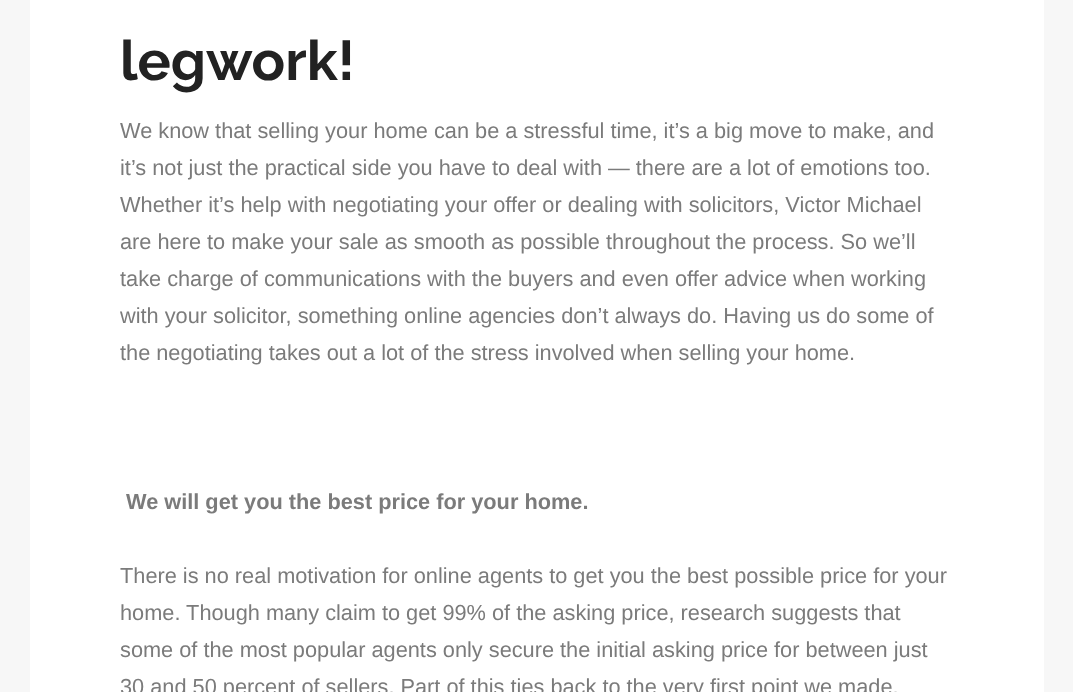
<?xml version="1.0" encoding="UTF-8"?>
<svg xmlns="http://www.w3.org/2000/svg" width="1073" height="692">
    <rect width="100%" height="100%" fill="#F7F7F7"/>
    <rect x="30" y="0" width="1014" height="692" fill="#FFFFFF"/>
    <text x="120" y="80" font-family="Raleway" font-size="55.5" font-weight="700" fill="#222222">legwork!</text>
    <text font-family="Liberation Sans" font-size="21.75" fill="#7B7B7B">
        <tspan x="120" y="138">We know that selling your home can be a stressful time, it’s a big move to make, and</tspan>
        <tspan x="120" y="175">it’s not just the practical side you have to deal with — there are a lot of emotions too.</tspan>
        <tspan x="120" y="212">Whether it’s help with negotiating your offer or dealing with solicitors, Victor Michael</tspan>
        <tspan x="120" y="249">are here to make your sale as smooth as possible throughout the process. So we’ll</tspan>
        <tspan x="120" y="286">take charge of communications with the buyers and even offer advice when working</tspan>
        <tspan x="120" y="323">with your solicitor, something online agencies don’t always do. Having us do some of</tspan>
        <tspan x="120" y="360">the negotiating takes out a lot of the stress involved when selling your home.</tspan>
    </text>
    <text x="126" y="509" font-family="Liberation Sans" font-size="21.75" font-weight="700" fill="#7B7B7B">We will get you the best price for your home.</text>
    <text font-family="Liberation Sans" font-size="21.75" fill="#7B7B7B">
        <tspan x="120" y="583">There is no real motivation for online agents to get you the best possible price for your</tspan>
        <tspan x="120" y="620">home. Though many claim to get 99% of the asking price, research suggests that</tspan>
        <tspan x="120" y="657">some of the most popular agents only secure the initial asking price for between just</tspan>
        <tspan x="120" y="694">30 and 50 percent of sellers. Part of this ties back to the very first point we made,</tspan>
    </text>
</svg>
